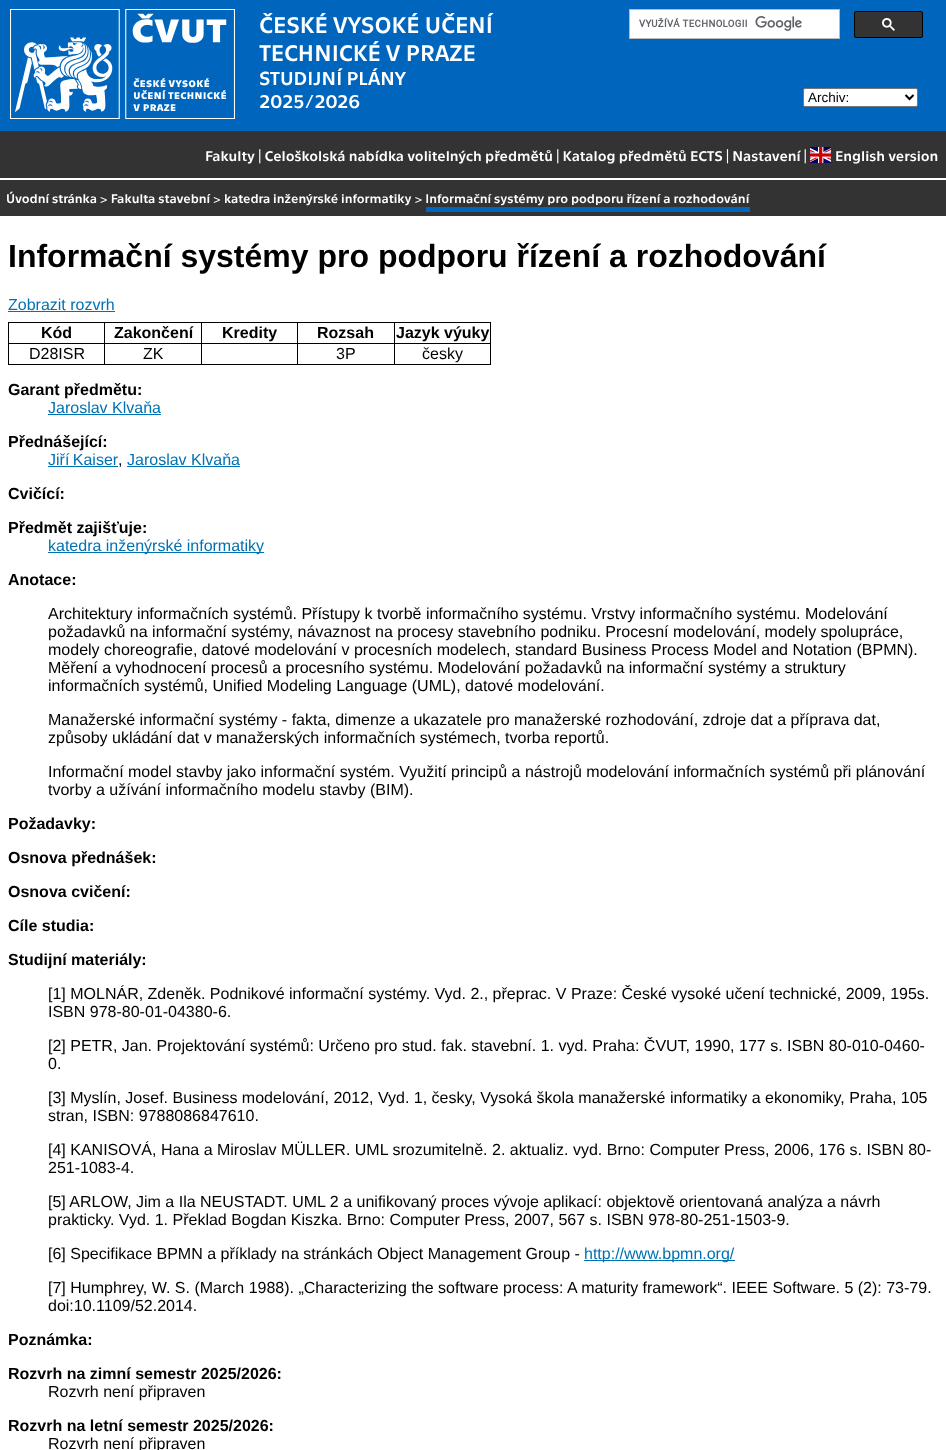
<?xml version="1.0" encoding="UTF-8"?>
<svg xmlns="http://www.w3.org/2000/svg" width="946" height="1450">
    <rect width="100%" height="100%" fill="#FFFFFF"/>
    <rect x="0" y="0" width="946" height="131" fill="#0065BD"/>
    <image x="10" y="9" width="225" height="110" href="img_01.png"/>
    <text x="259" y="33" font-family="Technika" font-size="23" fill="#FFFFFF">ČESKÉ VYSOKÉ UČENÍ</text>
    <rect x="629.5" y="9.5" width="210" height="29" fill="#FFFFFF" stroke="#BBBBBB"/>
    <image x="639" y="16" width="163" height="15" href="img_02.png"/>
    <rect x="854.5" y="11.5" width="68" height="26" rx="1.5" fill="#333333" stroke="#000000"/>
    <image x="882" y="18" width="13" height="13" href="img_03.png"/>
    <text x="259" y="61" font-family="Technika" font-size="23" fill="#FFFFFF">TECHNICKÉ V PRAZE</text>
    <text font-family="Technika" font-size="19.25" fill="#FFFFFF">
        <tspan x="259" y="85">STUDIJNÍ PLÁNY</tspan>
        <tspan x="259" y="108">2025/2026</tspan>
    </text>
    <rect x="803.5" y="88.5" width="114" height="18" rx="1.5" fill="#FFFFFF" stroke="#767676"/>
    <path d="M 905.5 95 L 909.5 99 L 913.5 95" fill="none" stroke="#000000" stroke-width="2"/>
    <text x="808" y="102" font-family="Liberation Sans" font-size="13.5" fill="#000000">Archiv:</text>
    <rect x="0" y="131" width="946" height="47" fill="#333333"/>
    <text x="205" y="161" font-family="Technika" font-size="14.4" fill="#FFFFFF">Fakulty | Celoškolská nabídka volitelných předmětů | Katalog předmětů ECTS | Nastavení |</text>
    <image x="810" y="147" width="21" height="16" href="img_04.png"/>
    <text x="835" y="161" font-family="Technika" font-size="14.4" fill="#FFFFFF">English version</text>
    <rect x="0" y="180" width="946" height="36" fill="#333333"/>
    <text x="6" y="203" font-family="Technika" font-size="12.8" fill="#FFFFFF">Úvodní stránka &gt; Fakulta stavební &gt; katedra inženýrské informatiky &gt; Informační systémy pro podporu řízení a rozhodování</text>
    <rect x="426" y="207" width="324" height="5" fill="#0065BD"/>
    <text x="8" y="267" font-family="Liberation Sans" font-size="32" font-weight="700" fill="#000000">Informační systémy pro podporu řízení a rozhodování</text>
    <text x="8" y="310" font-family="Liberation Sans" font-size="16" fill="#0071B3">Zobrazit rozvrh</text>
    <rect x="8" y="311" width="107" height="1" fill="#0071B3"/>
    <rect x="8" y="322" width="483" height="1" fill="#000000"/>
    <rect x="490" y="322" width="1" height="43" fill="#000000"/>
    <rect x="8" y="364" width="483" height="1" fill="#000000"/>
    <rect x="8" y="322" width="1" height="43" fill="#000000"/>
    <text x="41" y="338" font-family="Liberation Sans" font-size="16" font-weight="700" fill="#000000">Kód</text>
    <rect x="394" y="343" width="97" height="1" fill="#000000"/>
    <rect x="394" y="343" width="1" height="22" fill="#000000"/>
    <rect x="297" y="343" width="98" height="1" fill="#000000"/>
    <rect x="297" y="343" width="1" height="22" fill="#000000"/>
    <rect x="201" y="343" width="97" height="1" fill="#000000"/>
    <rect x="201" y="343" width="1" height="22" fill="#000000"/>
    <rect x="104" y="343" width="98" height="1" fill="#000000"/>
    <rect x="104" y="343" width="1" height="22" fill="#000000"/>
    <rect x="8" y="343" width="97" height="1" fill="#000000"/>
    <rect x="104" y="322" width="1" height="22" fill="#000000"/>
    <text x="114" y="338" font-family="Liberation Sans" font-size="16" font-weight="700" fill="#000000">Zakončení</text>
    <rect x="201" y="322" width="1" height="22" fill="#000000"/>
    <text x="222" y="338" font-family="Liberation Sans" font-size="16" font-weight="700" fill="#000000">Kredity</text>
    <rect x="297" y="322" width="1" height="22" fill="#000000"/>
    <text x="317" y="338" font-family="Liberation Sans" font-size="16" font-weight="700" fill="#000000">Rozsah</text>
    <rect x="394" y="322" width="1" height="22" fill="#000000"/>
    <text x="396" y="338" font-family="Liberation Sans" font-size="16" font-weight="700" fill="#000000">Jazyk výuky</text>
    <text x="29" y="359" font-family="Liberation Sans" font-size="16" fill="#000000">D28ISR</text>
    <text x="143" y="359" font-family="Liberation Sans" font-size="16" fill="#000000">ZK</text>
    <text x="336" y="359" font-family="Liberation Sans" font-size="16" fill="#000000">3P</text>
    <text x="422" y="359" font-family="Liberation Sans" font-size="16" fill="#000000">česky</text>
    <text x="8" y="395" font-family="Liberation Sans" font-size="16" font-weight="700" fill="#000000">Garant předmětu:</text>
    <text x="48" y="413" font-family="Liberation Sans" font-size="16" fill="#0071B3">Jaroslav Klvaňa</text>
    <rect x="48" y="414" width="113" height="1" fill="#0071B3"/>
    <text x="8" y="447" font-family="Liberation Sans" font-size="16" font-weight="700" fill="#000000">Přednášející:</text>
    <text x="48" y="465" word-spacing="-1" font-family="Liberation Sans" font-size="16" fill="#0071B3">Jiří Kaiser</text>
    <rect x="48" y="466" width="70" height="1" fill="#0071B3"/>
    <text x="118" y="465" font-family="Liberation Sans" font-size="16" fill="#000000">,</text>
    <text x="127" y="465" font-family="Liberation Sans" font-size="16" fill="#0071B3">Jaroslav Klvaňa</text>
    <rect x="127" y="466" width="113" height="1" fill="#0071B3"/>
    <text x="8" y="499" font-family="Liberation Sans" font-size="16" font-weight="700" fill="#000000">Cvičící:</text>
    <text x="8" y="533" font-family="Liberation Sans" font-size="16" font-weight="700" fill="#000000">Předmět zajišťuje:</text>
    <rect x="48" y="552" width="216" height="1" fill="#0071B3"/>
    <text x="48" y="551" font-family="Liberation Sans" font-size="16" fill="#0071B3">katedra inženýrské informatiky</text>
    <text x="8" y="585" font-family="Liberation Sans" font-size="16" font-weight="700" fill="#000000">Anotace:</text>
    <text font-family="Liberation Sans" font-size="16" fill="#000000">
        <tspan x="48" y="619">Architektury informačních systémů. Přístupy k tvorbě informačního systému. Vrstvy informačního systému. Modelování</tspan>
        <tspan x="48" y="637">požadavků na informační systémy, návaznost na procesy stavebního podniku. Procesní modelování, modely spolupráce,</tspan>
        <tspan x="48" y="655">modely choreografie, datové modelování v procesních modelech, standard Business Process Model and Notation (BPMN).</tspan>
        <tspan x="48" y="673">Měření a vyhodnocení procesů a procesního systému. Modelování požadavků na informační systémy a struktury</tspan>
        <tspan x="48" y="691">informačních systémů, Unified Modeling Language (UML), datové modelování.</tspan>
    </text>
    <text font-family="Liberation Sans" font-size="16" fill="#000000">
        <tspan x="48" y="725">Manažerské informační systémy - fakta, dimenze a ukazatele pro manažerské rozhodování, zdroje dat a příprava dat,</tspan>
        <tspan x="48" y="743">způsoby ukládání dat v manažerských informačních systémech, tvorba reportů.</tspan>
    </text>
    <text font-family="Liberation Sans" font-size="16" fill="#000000">
        <tspan x="48" y="777">Informační model stavby jako informační systém. Využití principů a nástrojů modelování informačních systémů při plánování</tspan>
        <tspan x="48" y="795">tvorby a užívání informačního modelu stavby (BIM).</tspan>
    </text>
    <text x="8" y="829" font-family="Liberation Sans" font-size="16" font-weight="700" fill="#000000">Požadavky:</text>
    <text x="8" y="863" font-family="Liberation Sans" font-size="16" font-weight="700" fill="#000000">Osnova přednášek:</text>
    <text x="8" y="897" font-family="Liberation Sans" font-size="16" font-weight="700" fill="#000000">Osnova cvičení:</text>
    <text x="8" y="931" font-family="Liberation Sans" font-size="16" font-weight="700" fill="#000000">Cíle studia:</text>
    <text x="8" y="965" font-family="Liberation Sans" font-size="16" font-weight="700" fill="#000000">Studijní materiály:</text>
    <text font-family="Liberation Sans" font-size="16" fill="#000000">
        <tspan x="48" y="999">[1] MOLNÁR, Zdeněk. Podnikové informační systémy. Vyd. 2., přeprac. V Praze: České vysoké učení technické, 2009, 195s.</tspan>
        <tspan x="48" y="1017">ISBN 978-80-01-04380-6.</tspan>
    </text>
    <text font-family="Liberation Sans" font-size="16" fill="#000000">
        <tspan x="48" y="1051">[2] PETR, Jan. Projektování systémů: Určeno pro stud. fak. stavební. 1. vyd. Praha: ČVUT, 1990, 177 s. ISBN 80-010-0460-</tspan>
        <tspan x="48" y="1069">0.</tspan>
    </text>
    <text font-family="Liberation Sans" font-size="16" fill="#000000">
        <tspan x="48" y="1103">[3] Myslín, Josef. Business modelování, 2012, Vyd. 1, česky, Vysoká škola manažerské informatiky a ekonomiky, Praha, 105</tspan>
        <tspan x="48" y="1121">stran, ISBN: 9788086847610.</tspan>
    </text>
    <text font-family="Liberation Sans" font-size="16" fill="#000000">
        <tspan x="48" y="1155">[4] KANISOVÁ, Hana a Miroslav MÜLLER. UML srozumitelně. 2. aktualiz. vyd. Brno: Computer Press, 2006, 176 s. ISBN 80-</tspan>
        <tspan x="48" y="1173">251-1083-4.</tspan>
    </text>
    <text font-family="Liberation Sans" font-size="16" fill="#000000">
        <tspan x="48" y="1207">[5] ARLOW, Jim a Ila NEUSTADT. UML 2 a unifikovaný proces vývoje aplikací: objektově orientovaná analýza a návrh</tspan>
        <tspan x="48" y="1225">prakticky. Vyd. 1. Překlad Bogdan Kiszka. Brno: Computer Press, 2007, 567 s. ISBN 978-80-251-1503-9.</tspan>
    </text>
    <text x="48" y="1259" font-family="Liberation Sans" font-size="16" fill="#000000">[6] Specifikace BPMN a příklady na stránkách Object Management Group -</text>
    <rect x="584" y="1260" width="151" height="1" fill="#0071B3"/>
    <text x="584" y="1259" font-family="Liberation Sans" font-size="16" fill="#0071B3">http://www.bpmn.org/</text>
    <text font-family="Liberation Sans" font-size="16" fill="#000000">
        <tspan x="48" y="1293">[7] Humphrey, W. S. (March 1988). „Characterizing the software process: A maturity framework“. IEEE Software. 5 (2): 73-79.</tspan>
        <tspan x="48" y="1311">doi:10.1109/52.2014.</tspan>
    </text>
    <text x="8" y="1345" font-family="Liberation Sans" font-size="16" font-weight="700" fill="#000000">Poznámka:</text>
    <text x="8" y="1379" font-family="Liberation Sans" font-size="16" font-weight="700" fill="#000000">Rozvrh na zimní semestr 2025/2026:</text>
    <text x="48" y="1397" font-family="Liberation Sans" font-size="16" fill="#000000">Rozvrh není připraven</text>
    <text x="8" y="1431" font-family="Liberation Sans" font-size="16" font-weight="700" fill="#000000">Rozvrh na letní semestr 2025/2026:</text>
    <text x="48" y="1449" font-family="Liberation Sans" font-size="16" fill="#000000">Rozvrh není připraven</text>
</svg>
